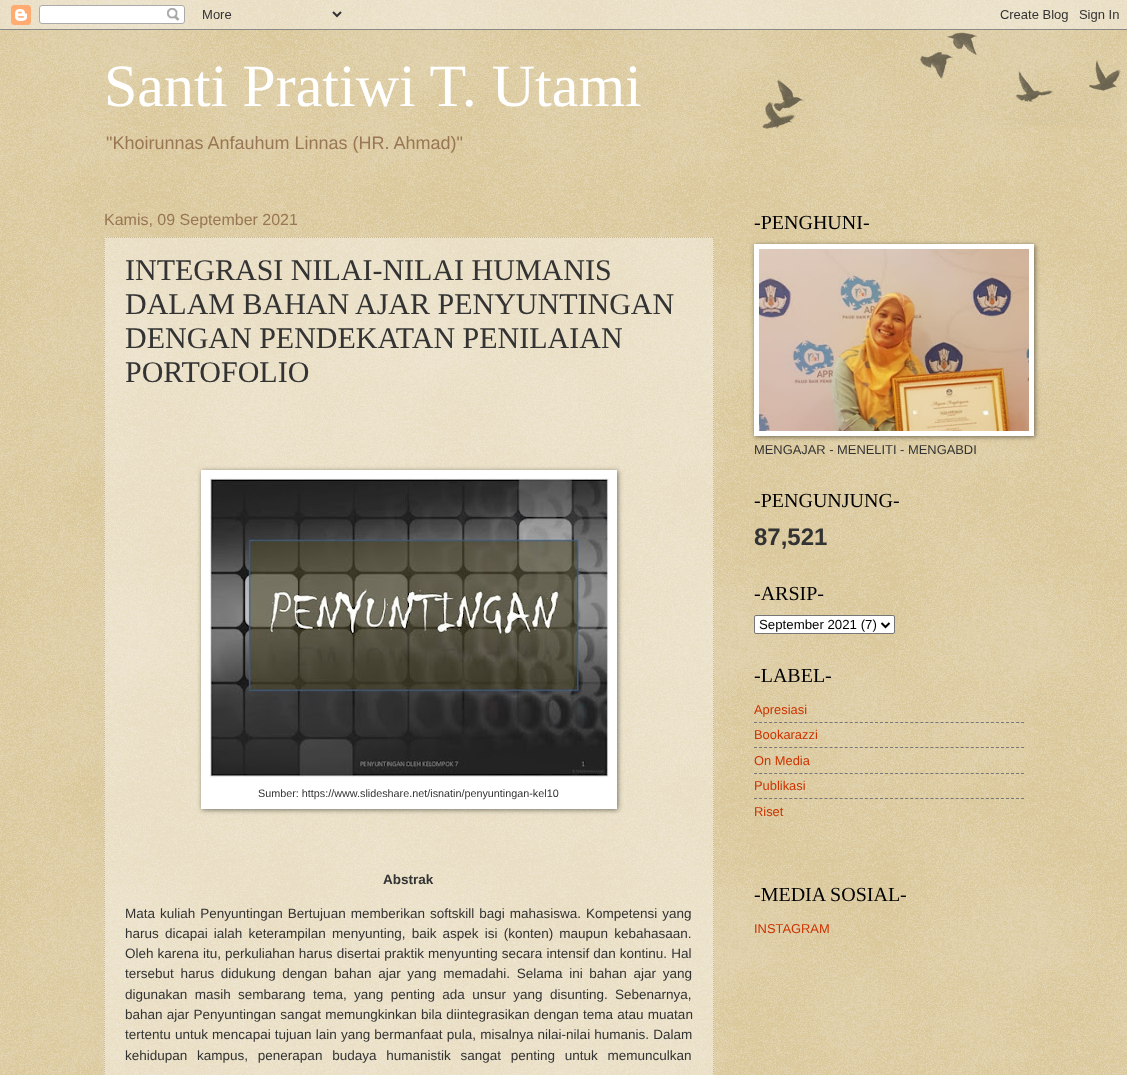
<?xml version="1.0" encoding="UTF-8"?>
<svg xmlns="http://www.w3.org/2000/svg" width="1127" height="1075">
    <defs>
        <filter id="blur1" x="-50%" y="-200%" width="200%" height="500%"><feGaussianBlur stdDeviation="2.5"/></filter>
    </defs>
    <rect width="100%" height="100%" fill="#C0A154"/>
    <image x="0" y="0" width="1127" height="1075" href="img_01.png"/>
    <image x="0" y="0" width="1127" height="30" href="img_02.png"/>
    <image x="762" y="32" width="359" height="97" href="img_03.png"/>
    <text x="104" y="106" font-family="Liberation Serif" font-size="60" fill="#FFFFFF">Santi Pratiwi T. Utami</text>
    <text x="106" y="149" font-family="Liberation Sans" font-size="18" fill="#997755">"Khoirunnas Anfauhum Linnas (HR. Ahmad)"</text>
    <text x="104" y="225" font-family="Liberation Sans" font-size="16" fill="#997755">Kamis, 09 September 2021</text>
    <rect x="104" y="237" width="610" height="838" fill="#FFFFFF" fill-opacity="0.4"/>
    <path d="M 104 237.5 H 714" fill="none" stroke="#CCBB99" stroke-dasharray="1 1"/>
    <path d="M 713.5 237 V 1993" fill="none" stroke="#CCBB99" stroke-dasharray="1 1"/>
    <path d="M 104.5 237 V 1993" fill="none" stroke="#CCBB99" stroke-dasharray="1 1"/>
    <text font-family="Liberation Serif" font-size="30" fill="#333333">
        <tspan x="125" y="280">INTEGRASI NILAI-NILAI HUMANIS</tspan>
        <tspan x="125" y="314">DALAM BAHAN AJAR PENYUNTINGAN</tspan>
        <tspan x="125" y="348">DENGAN PENDEKATAN PENILAIAN</tspan>
        <tspan x="125" y="382">PORTOFOLIO</tspan>
    </text>
    <rect x="202" y="471" width="416" height="339" fill="#000000" fill-opacity="0.5" filter="url(#blur1)"/>
    <rect x="201" y="470" width="416" height="339" fill="#FFFFFF"/>
    <image x="209" y="478" width="400" height="300" href="img_04.png"/>
    <text x="258" y="797" font-family="Liberation Sans" font-size="10.8" fill="#333333">Sumber: https://www.slideshare.net/isnatin/penyuntingan-kel10</text>
    <text x="383" y="884" font-family="Liberation Sans" font-size="13.5" font-weight="700" fill="#333333">Abstrak</text>
    <text font-family="Liberation Sans" font-size="13.5" fill="#333333">
        <tspan x="125" y="918" word-spacing="1.25">Mata kuliah Penyuntingan Bertujuan memberikan softskill bagi mahasiswa. Kompetensi yang</tspan>
        <tspan x="125" y="938" word-spacing="2.4">harus dicapai ialah keterampilan menyunting, baik aspek isi (konten) maupun kebahasaan.</tspan>
        <tspan x="125" y="958" word-spacing="0.3">Oleh karena itu, perkuliahan harus disertai praktik menyunting secara intensif dan kontinu. Hal</tspan>
        <tspan x="125" y="978" word-spacing="2.9">tersebut harus didukung dengan bahan ajar yang memadahi. Selama ini bahan ajar yang</tspan>
        <tspan x="125" y="999" word-spacing="3.6">digunakan masih sembarang tema, yang penting ada unsur yang disunting. Sebenarnya,</tspan>
        <tspan x="125" y="1019" word-spacing="0.5">bahan ajar Penyuntingan sangat memungkinkan bila diintegrasikan dengan tema atau muatan</tspan>
        <tspan x="125" y="1039" word-spacing="0.4">tertentu untuk mencapai tujuan lain yang bermanfaat pula, misalnya nilai-nilai humanis. Dalam</tspan>
        <tspan x="125" y="1060" word-spacing="6">kehidupan kampus, penerapan budaya humanistik sangat penting untuk memunculkan</tspan>
    </text>
    <text x="754" y="229" font-family="Liberation Serif" font-size="20" fill="#000000">-PENGHUNI-</text>
    <rect x="755" y="245" width="280" height="192" fill="#000000" fill-opacity="0.5" filter="url(#blur1)"/>
    <rect x="754" y="244" width="280" height="192" fill="#FFFFFF"/>
    <image x="759" y="249" width="270" height="182" href="img_05.png"/>
    <text x="754" y="454" font-family="Liberation Sans" font-size="12.9" fill="#333333">MENGAJAR - MENELITI - MENGABDI</text>
    <text x="754" y="507" font-family="Liberation Serif" font-size="20" fill="#000000">-PENGUNJUNG-</text>
    <text x="754" y="545" font-family="Liberation Sans" font-size="24" font-weight="700" fill="#333333">87,521</text>
    <text x="754" y="600" font-family="Liberation Serif" font-size="20" fill="#000000">-ARSIP-</text>
    <rect x="754.5" y="615.5" width="140" height="18" rx="1.5" fill="#FFFFFF" stroke="#767676"/>
    <path d="M 881.5 623 L 885.5 627 L 889.5 623" fill="none" stroke="#000000" stroke-width="2"/>
    <text x="759" y="629" font-family="Liberation Sans" font-size="13.25" fill="#000000">September 2021 (7)</text>
    <text x="754" y="682" font-family="Liberation Serif" font-size="20" fill="#000000">-LABEL-</text>
    <text x="754" y="714" font-family="Liberation Sans" font-size="12.9" fill="#CC3300">Apresiasi</text>
    <path d="M 754 722.5 H 1024" fill="none" stroke="#777777" stroke-dasharray="3 2.04"/>
    <text x="754" y="739" font-family="Liberation Sans" font-size="12.9" fill="#CC3300">Bookarazzi</text>
    <path d="M 754 747.5 H 1024" fill="none" stroke="#777777" stroke-dasharray="3 2.04"/>
    <text x="754" y="765" font-family="Liberation Sans" font-size="12.9" fill="#CC3300">On Media</text>
    <path d="M 754 773.5 H 1024" fill="none" stroke="#777777" stroke-dasharray="3 2.04"/>
    <text x="754" y="790" font-family="Liberation Sans" font-size="12.9" fill="#CC3300">Publikasi</text>
    <path d="M 754 798.5 H 1024" fill="none" stroke="#777777" stroke-dasharray="3 2.04"/>
    <text x="754" y="816" font-family="Liberation Sans" font-size="12.9" fill="#CC3300">Riset</text>
    <text x="754" y="901" font-family="Liberation Serif" font-size="20" fill="#000000">-MEDIA SOSIAL-</text>
    <text x="754" y="933" font-family="Liberation Sans" font-size="12.9" fill="#CC3300">INSTAGRAM</text>
</svg>
